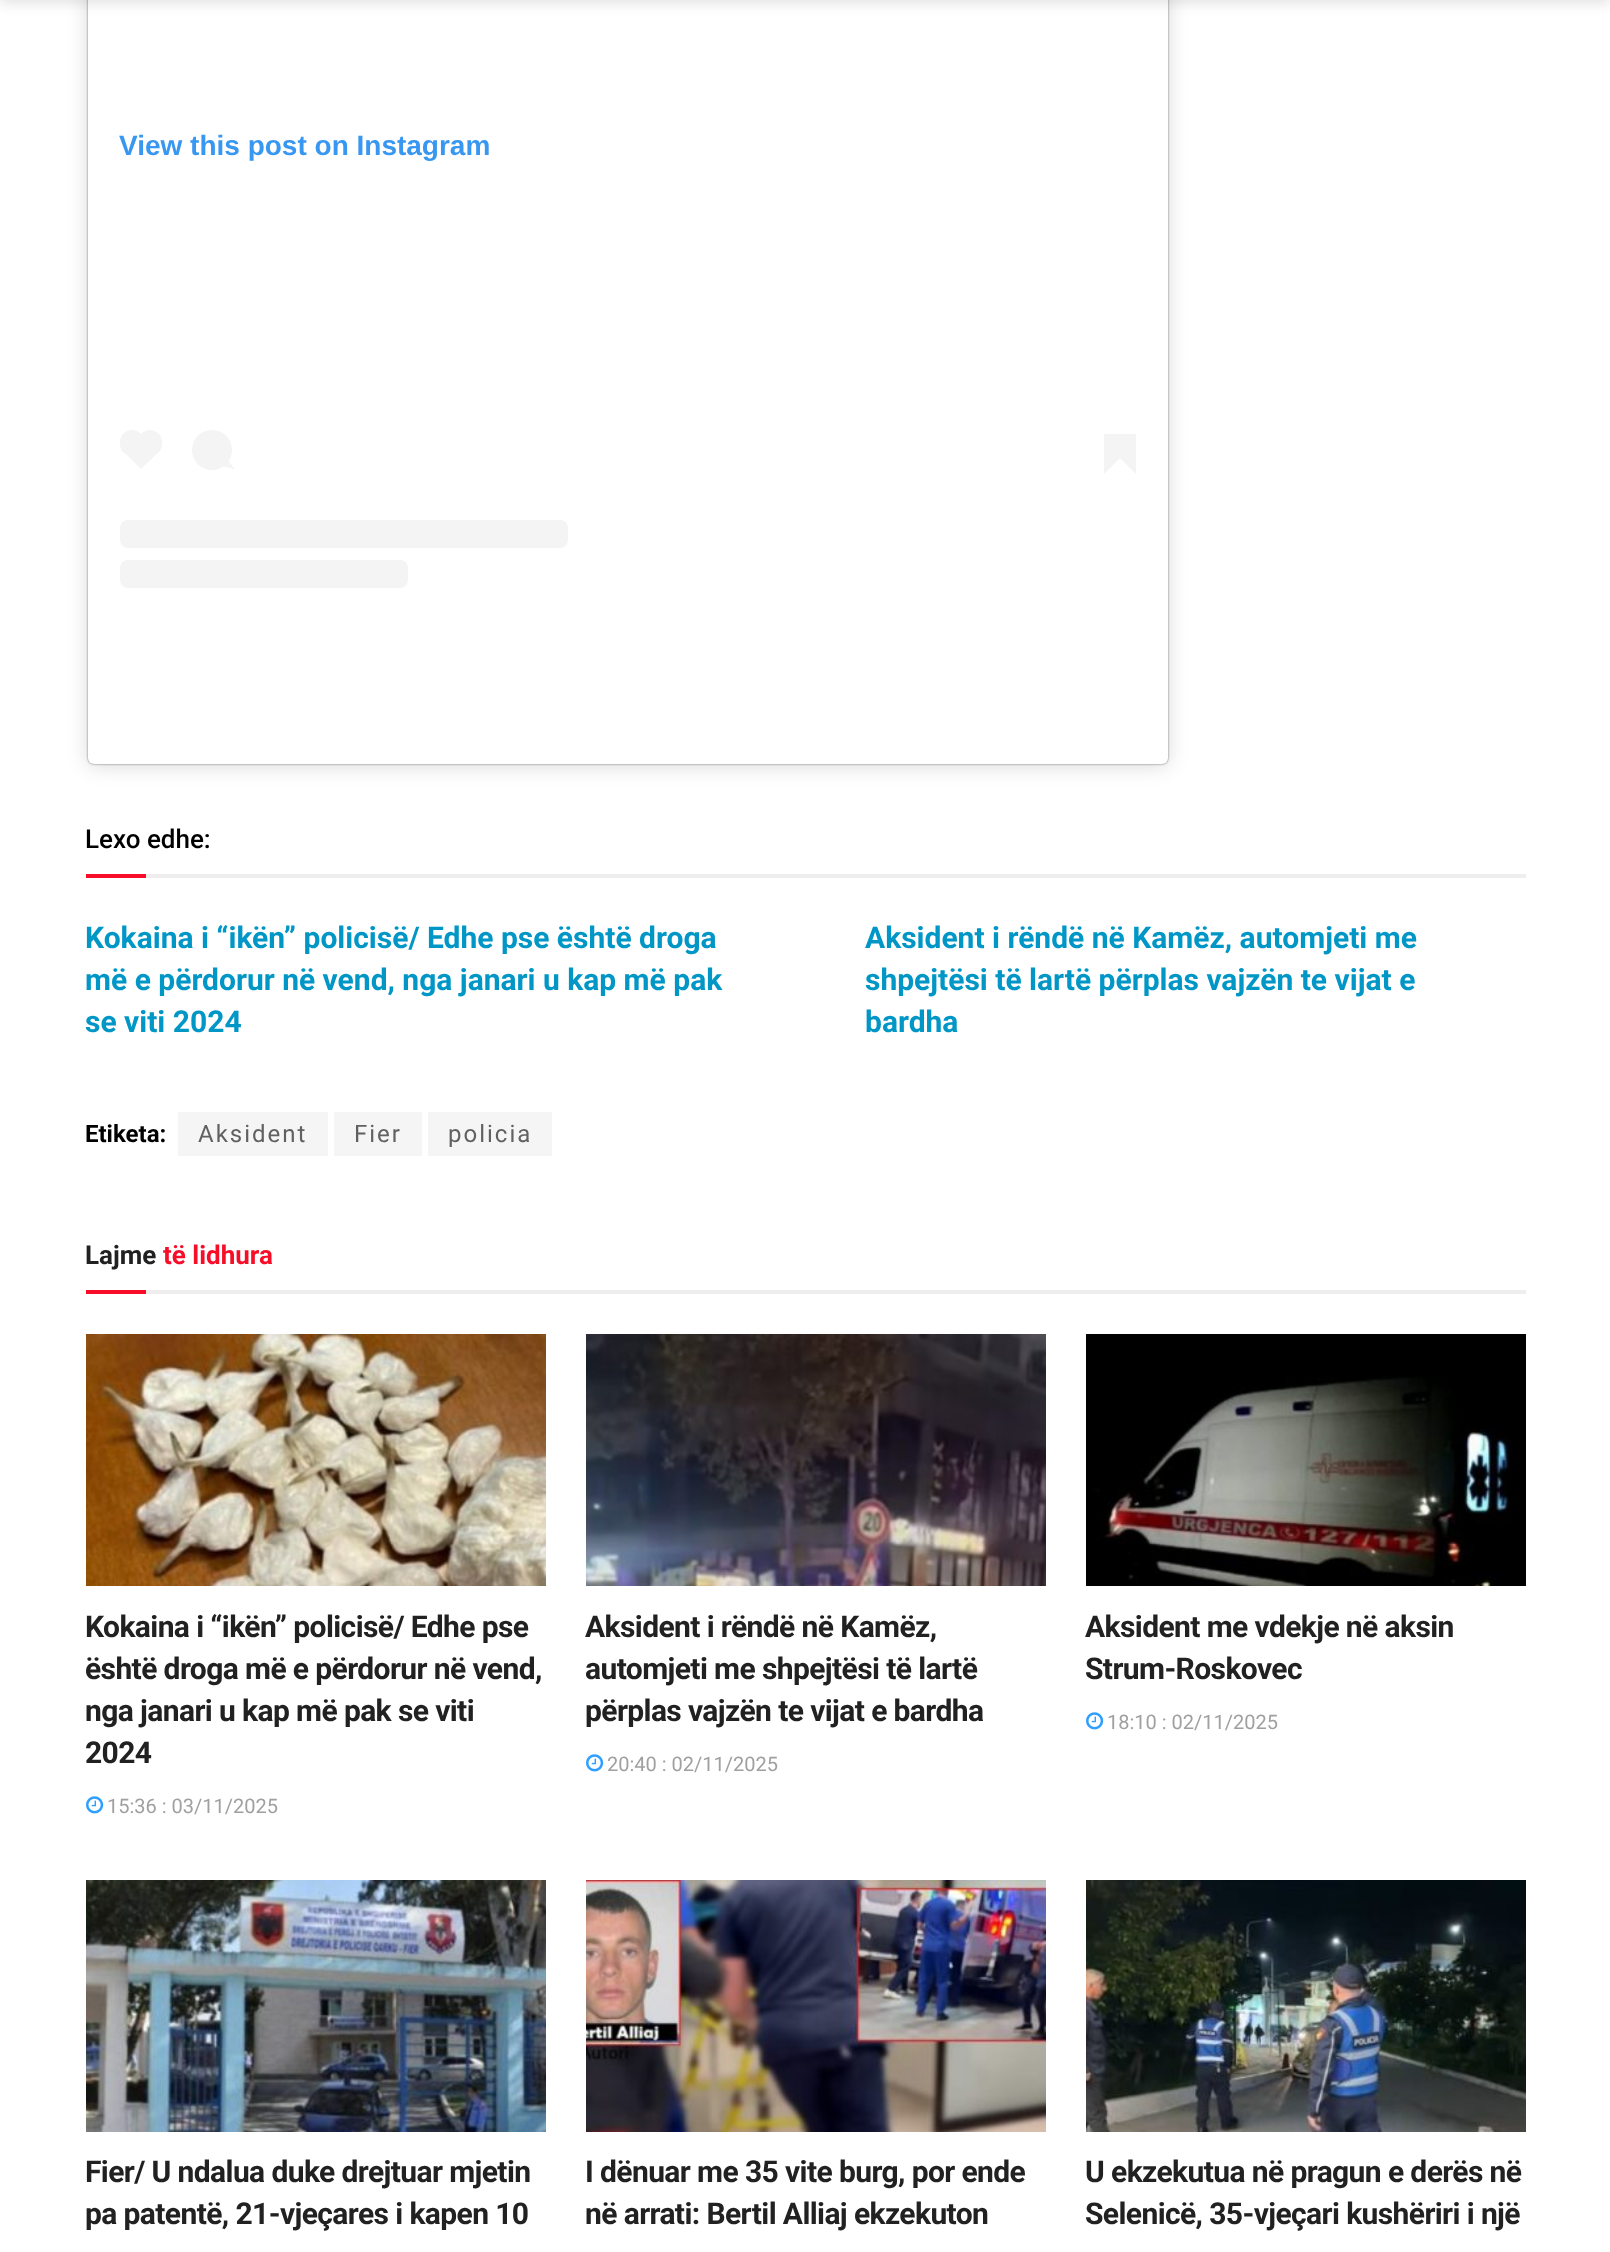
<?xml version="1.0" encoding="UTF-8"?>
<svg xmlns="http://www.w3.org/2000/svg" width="1610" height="2252">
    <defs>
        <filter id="blur1" x="-50%" y="-200%" width="200%" height="500%"><feGaussianBlur stdDeviation="10"/></filter>
        <filter id="blur2" x="-50%" y="-200%" width="200%" height="500%"><feGaussianBlur stdDeviation="1"/></filter>
        <filter id="blur3" x="-50%" y="-200%" width="200%" height="500%"><feGaussianBlur stdDeviation="6"/></filter>
    </defs>
    <rect width="100%" height="100%" fill="#FFFFFF"/>
    <rect x="88" y="-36" width="1080" height="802" rx="6" fill="#000000" fill-opacity="0.15" filter="url(#blur1)"/>
    <rect x="88" y="-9" width="1080" height="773" rx="6" fill="#000000" fill-opacity="0.5" filter="url(#blur2)"/>
    <rect x="88" y="-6" width="1080" height="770" rx="6" fill="#FFFFFF"/>
    <rect x="0" y="-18" width="1610" height="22" fill="#000000" fill-opacity="0.1" filter="url(#blur3)"/>
    <text x="119" y="155" font-family="Liberation Sans" font-size="28" font-weight="700" fill="#3897F0">View this post on Instagram</text>
    <rect x="120" y="430" width="24" height="26" rx="12" fill="#F4F4F4"/>
    <path d="M 123.5 451.5 L 141 433.5 L 159 451.5 L 141 469 Z" fill="#F4F4F4"/>
    <rect x="138" y="430" width="24" height="26" rx="12" fill="#F4F4F4"/>
    <circle cx="212" cy="450" r="20" fill="#F4F4F4"/>
    <path d="M 223 466.5 L 227 459.5 L 235 469 Z" fill="#F4F4F4"/>
    <rect x="1104" y="434" width="32" height="24" fill="#F4F4F4"/>
    <path d="M 1104 458 H 1120 L 1104 474 Z" fill="#F4F4F4"/>
    <path d="M 1120 458 H 1136 V 474 Z" fill="#F4F4F4"/>
    <rect x="120" y="520" width="448" height="28" rx="8" fill="#F4F4F4"/>
    <rect x="120" y="560" width="288" height="28" rx="8" fill="#F4F4F4"/>
    <rect x="146" y="874" width="1380" height="4" fill="#EEEEEE"/>
    <text x="85" y="848" font-family="Roboto" font-size="26" font-weight="500" fill="#000000">Lexo edhe:</text>
    <rect x="86" y="874" width="60" height="4" fill="#F70D28"/>
    <text font-family="Roboto" font-size="30" font-weight="700" fill="#0096C6">
        <tspan x="85" y="948">Kokaina i “ikën” policisë/ Edhe pse është droga</tspan>
        <tspan x="85" y="990">më e përdorur në vend, nga janari u kap më pak</tspan>
        <tspan x="85" y="1032">se viti 2024</tspan>
    </text>
    <text font-family="Roboto" font-size="30" font-weight="700" fill="#0096C6">
        <tspan x="865" y="948">Aksident i rëndë në Kamëz, automjeti me</tspan>
        <tspan x="865" y="990">shpejtësi të lartë përplas vajzën te vijat e</tspan>
        <tspan x="865" y="1032">bardha</tspan>
    </text>
    <text x="85" y="1142" font-family="Roboto" font-size="24" font-weight="700" fill="#000000">Etiketa:</text>
    <rect x="178" y="1112" width="150" height="44" fill="#F5F5F5"/>
    <text x="198" y="1142" font-family="Roboto" font-size="24" letter-spacing="2" fill="#616161">Aksident</text>
    <rect x="334" y="1112" width="88" height="44" fill="#F5F5F5"/>
    <text x="354" y="1142" font-family="Roboto" font-size="24" letter-spacing="2" fill="#616161">Fier</text>
    <rect x="428" y="1112" width="124" height="44" fill="#F5F5F5"/>
    <text x="448" y="1142" font-family="Roboto" font-size="24" letter-spacing="2" fill="#616161">policia</text>
    <rect x="146" y="1290" width="1380" height="4" fill="#EEEEEE"/>
    <text x="85" y="1264" font-family="Roboto" font-size="26" font-weight="700" fill="#212121">Lajme</text>
    <text x="163" y="1264" font-family="Roboto" font-size="26" font-weight="700" fill="#F70D28">të lidhura</text>
    <rect x="86" y="1290" width="60" height="4" fill="#F70D28"/>
    <image x="86" y="1334" width="460" height="252" href="img_01.png"/>
    <text font-family="Roboto" font-size="30" font-weight="700" letter-spacing="-0.6" fill="#212121">
        <tspan x="85" y="1637">Kokaina i “ikën” policisë/ Edhe pse</tspan>
        <tspan x="85" y="1679">është droga më e përdorur në vend,</tspan>
        <tspan x="85" y="1721">nga janari u kap më pak se viti</tspan>
        <tspan x="85" y="1763">2024</tspan>
    </text>
    <image x="86" y="1796" width="18" height="18" href="img_02.png"/>
    <text x="107" y="1813" font-family="Roboto" font-size="20" fill="#A0A0A0">15:36 : 03/11/2025</text>
    <image x="586" y="1334" width="460" height="252" href="img_03.png"/>
    <text font-family="Roboto" font-size="30" font-weight="700" letter-spacing="-0.6" fill="#212121">
        <tspan x="585" y="1637">Aksident i rëndë në Kamëz,</tspan>
        <tspan x="585" y="1679">automjeti me shpejtësi të lartë</tspan>
        <tspan x="585" y="1721">përplas vajzën te vijat e bardha</tspan>
    </text>
    <image x="586" y="1754" width="18" height="18" href="img_02.png"/>
    <text x="607" y="1771" font-family="Roboto" font-size="20" fill="#A0A0A0">20:40 : 02/11/2025</text>
    <image x="1086" y="1334" width="440" height="252" href="img_04.png"/>
    <text font-family="Roboto" font-size="30" font-weight="700" letter-spacing="-0.6" fill="#212121">
        <tspan x="1085" y="1637">Aksident me vdekje në aksin</tspan>
        <tspan x="1085" y="1679">Strum-Roskovec</tspan>
    </text>
    <image x="1086" y="1712" width="18" height="18" href="img_02.png"/>
    <text x="1107" y="1729" font-family="Roboto" font-size="20" fill="#A0A0A0">18:10 : 02/11/2025</text>
    <image x="86" y="1880" width="460" height="252" href="img_05.png"/>
    <text font-family="Roboto" font-size="30" font-weight="700" letter-spacing="-0.6" fill="#212121">
        <tspan x="85" y="2182">Fier/ U ndalua duke drejtuar mjetin</tspan>
        <tspan x="85" y="2224">pa patentë, 21-vjeçares i kapen 10</tspan>
    </text>
    <image x="586" y="1880" width="460" height="252" href="img_06.png"/>
    <text font-family="Roboto" font-size="30" font-weight="700" letter-spacing="-0.6" fill="#212121">
        <tspan x="585" y="2182">I dënuar me 35 vite burg, por ende</tspan>
        <tspan x="585" y="2224">në arrati: Bertil Alliaj ekzekuton</tspan>
    </text>
    <image x="1086" y="1880" width="440" height="252" href="img_07.png"/>
    <text font-family="Roboto" font-size="30" font-weight="700" letter-spacing="-0.6" fill="#212121">
        <tspan x="1085" y="2182">U ekzekutua në pragun e derës në</tspan>
        <tspan x="1085" y="2224">Selenicë, 35-vjeçari kushëriri i një</tspan>
    </text>
</svg>
